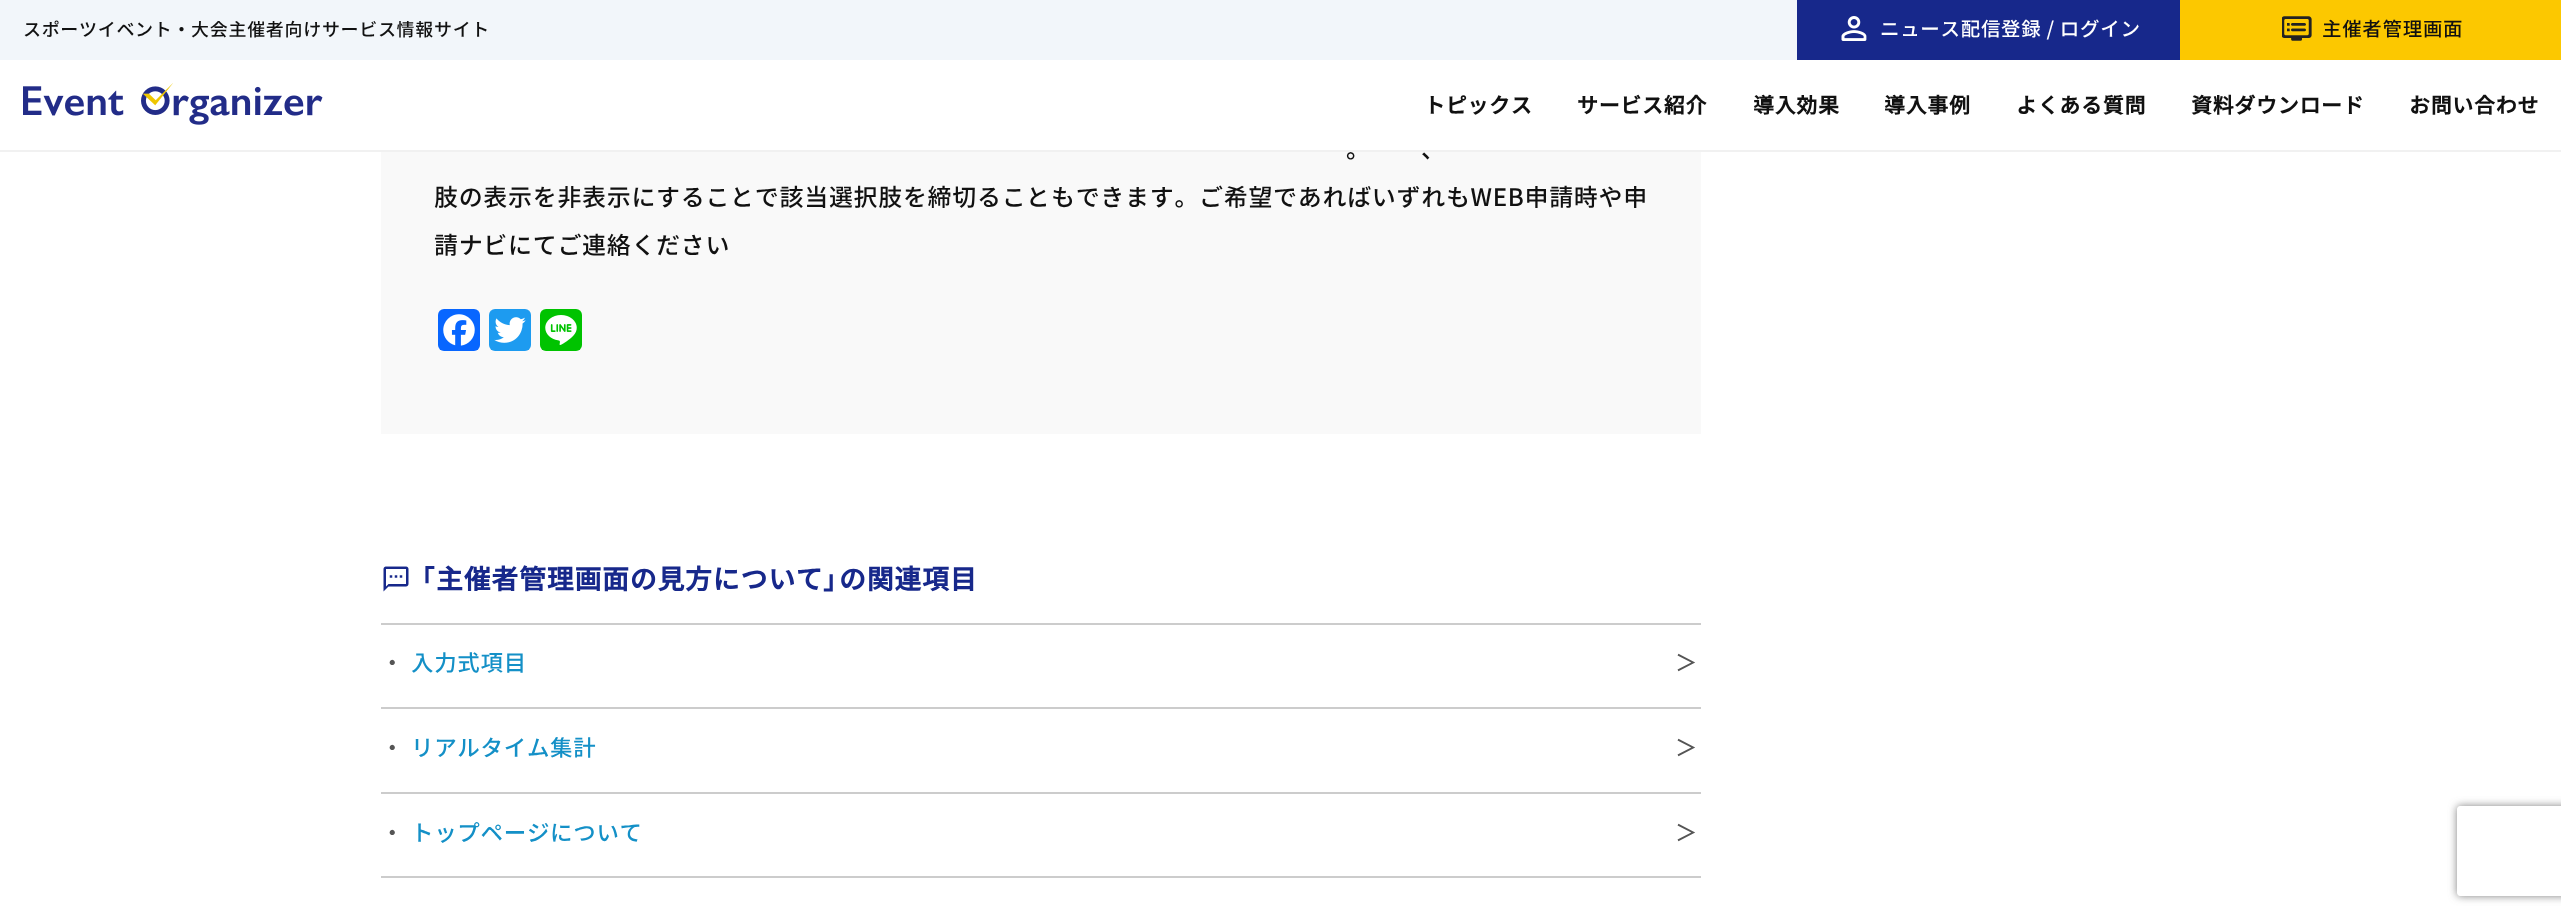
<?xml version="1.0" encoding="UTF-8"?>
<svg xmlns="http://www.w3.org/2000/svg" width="2561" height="916">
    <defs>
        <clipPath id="clip1"><path d="M 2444 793 H 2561 V 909 H 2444 Z M 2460 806 H 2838 C 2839.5 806 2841 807.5 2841 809 V 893 C 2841 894.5 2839.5 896 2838 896 H 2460 C 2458.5 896 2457 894.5 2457 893 V 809 C 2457 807.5 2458.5 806 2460 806 Z" clip-rule="evenodd"/></clipPath>
        <filter id="blur1" x="-50%" y="-200%" width="200%" height="500%"><feGaussianBlur stdDeviation="4"/></filter>
    </defs>
    <rect width="100%" height="100%" fill="#FFFFFF"/>
    <rect x="0" y="150" width="2561" height="2" fill="#F1F1F1"/>
    <rect x="0" y="0" width="1797" height="60" fill="#F2F6FA"/>
    <text x="23" y="36" font-family="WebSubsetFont" font-size="18" font-weight="500" letter-spacing="0.68" fill="#111111">スポーツイベント・大会主催者向けサービス情報サイト</text>
    <rect x="1797" y="0" width="383" height="60" fill="#17288B"/>
    <image x="1841" y="16" width="26" height="25" href="img_01.png"/>
    <text x="1880" y="36" font-family="WebSubsetFont" font-size="19.5" font-weight="500" letter-spacing="0.68" fill="#FFFFFF">ニュース配信登録 / ログイン</text>
    <rect x="2180" y="0" width="381" height="60" fill="#FCC800"/>
    <image x="2282" y="16" width="30" height="25" href="img_02.png"/>
    <text x="2322" y="36" font-family="WebSubsetFont" font-size="19.5" font-weight="500" letter-spacing="0.68" fill="#111111">主催者管理画面</text>
    <image x="23" y="83" width="300" height="42" href="img_03.png"/>
    <text x="1424" y="113" font-family="WebSubsetFont" font-size="21" font-weight="700" letter-spacing="0.68" fill="#111111">トピックス</text>
    <text x="1577" y="113" font-family="WebSubsetFont" font-size="21" font-weight="700" letter-spacing="0.68" fill="#111111">サービス紹介</text>
    <text x="1753" y="113" font-family="WebSubsetFont" font-size="21" font-weight="700" letter-spacing="0.68" fill="#111111">導入効果</text>
    <text x="1884" y="113" font-family="WebSubsetFont" font-size="21" font-weight="700" letter-spacing="0.68" fill="#111111">導入事例</text>
    <text x="2016" y="113" font-family="WebSubsetFont" font-size="21" font-weight="700" letter-spacing="0.68" fill="#111111">よくある質問</text>
    <text x="2191" y="113" font-family="WebSubsetFont" font-size="21" font-weight="700" letter-spacing="0.68" fill="#111111">資料ダウンロード</text>
    <text x="2409" y="113" font-family="WebSubsetFont" font-size="21" font-weight="700" letter-spacing="0.68" fill="#111111">お問い合わせ</text>
    <rect x="381" y="152" width="1320" height="282" fill="#F9F9F9"/>
    <text x="1346" y="158" font-family="WebSubsetFont" font-size="24" font-weight="500" letter-spacing="0.68" fill="#111111">。</text>
    <text x="1421" y="158" font-family="WebSubsetFont" font-size="24" font-weight="500" letter-spacing="0.68" fill="#111111">、</text>
    <text x="434" y="206" font-family="WebSubsetFont" font-size="24" font-weight="500" letter-spacing="0.68" fill="#111111">肢の表示を非表示にすることで該当選択肢を締切ることもできます。ご希望であればいずれもWEB申請時や申</text>
    <text x="434" y="254" font-family="WebSubsetFont" font-size="24" font-weight="500" letter-spacing="0.68" fill="#111111">請ナビにてご連絡ください</text>
    <rect x="438" y="309" width="42" height="42" rx="6" fill="#0866FF"/>
    <image x="443" y="314" width="32" height="32" href="img_04.png"/>
    <rect x="489" y="309" width="42" height="42" rx="6" fill="#1D9BF0"/>
    <image x="494" y="317" width="32" height="26" href="img_05.png"/>
    <rect x="540" y="309" width="42" height="42" rx="6" fill="#00C300"/>
    <image x="545" y="315" width="32" height="30" href="img_06.png"/>
    <image x="383" y="566" width="26" height="26" href="img_07.png"/>
    <text x="420" y="589" font-family="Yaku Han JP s" font-size="27" font-weight="700" letter-spacing="0.68" fill="#17288B">「</text>
    <text x="436" y="589" font-family="WebSubsetFont" font-size="27" font-weight="700" letter-spacing="0.68" fill="#17288B">主催者管理画面の見方について</text>
    <text x="823" y="589" font-family="Yaku Han JP s" font-size="27" font-weight="700" letter-spacing="0.68" fill="#17288B">」</text>
    <text x="839" y="589" font-family="WebSubsetFont" font-size="27" font-weight="700" letter-spacing="0.68" fill="#17288B">の関連項目</text>
    <rect x="381" y="623" width="1320" height="2" fill="#CCCCCC"/>
    <text x="381" y="671" font-family="WebSubsetFont" font-size="22.5" font-weight="500" letter-spacing="0.68" fill="#555555">・</text>
    <text x="411" y="671" font-family="WebSubsetFont" font-size="22.5" font-weight="500" letter-spacing="0.68" fill="#1490C7">入力式項目</text>
    <text x="1675" y="671" font-family="WebSubsetFont" font-size="22.5" font-weight="500" letter-spacing="-9" fill="#555555">＞</text>
    <rect x="381" y="707" width="1320" height="2" fill="#CCCCCC"/>
    <text x="381" y="756" font-family="WebSubsetFont" font-size="22.5" font-weight="500" letter-spacing="0.68" fill="#555555">・</text>
    <text x="411" y="756" font-family="WebSubsetFont" font-size="22.5" font-weight="500" letter-spacing="0.68" fill="#1490C7">リアルタイム集計</text>
    <text x="1675" y="756" font-family="WebSubsetFont" font-size="22.5" font-weight="500" letter-spacing="-9" fill="#555555">＞</text>
    <rect x="381" y="792" width="1320" height="2" fill="#CCCCCC"/>
    <rect x="381" y="876" width="1320" height="2" fill="#CCCCCC"/>
    <text x="381" y="841" font-family="WebSubsetFont" font-size="22.5" font-weight="500" letter-spacing="0.68" fill="#555555">・</text>
    <text x="411" y="841" font-family="WebSubsetFont" font-size="22.5" font-weight="500" letter-spacing="0.68" fill="#1490C7">トップページについて</text>
    <text x="1675" y="841" font-family="WebSubsetFont" font-size="22.5" font-weight="500" letter-spacing="-9" fill="#555555">＞</text>
    <g clip-path="url(#clip1)">
        <rect x="2457" y="806" width="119" height="90" rx="3" fill="#808080" filter="url(#blur1)"/>
    </g>
</svg>
